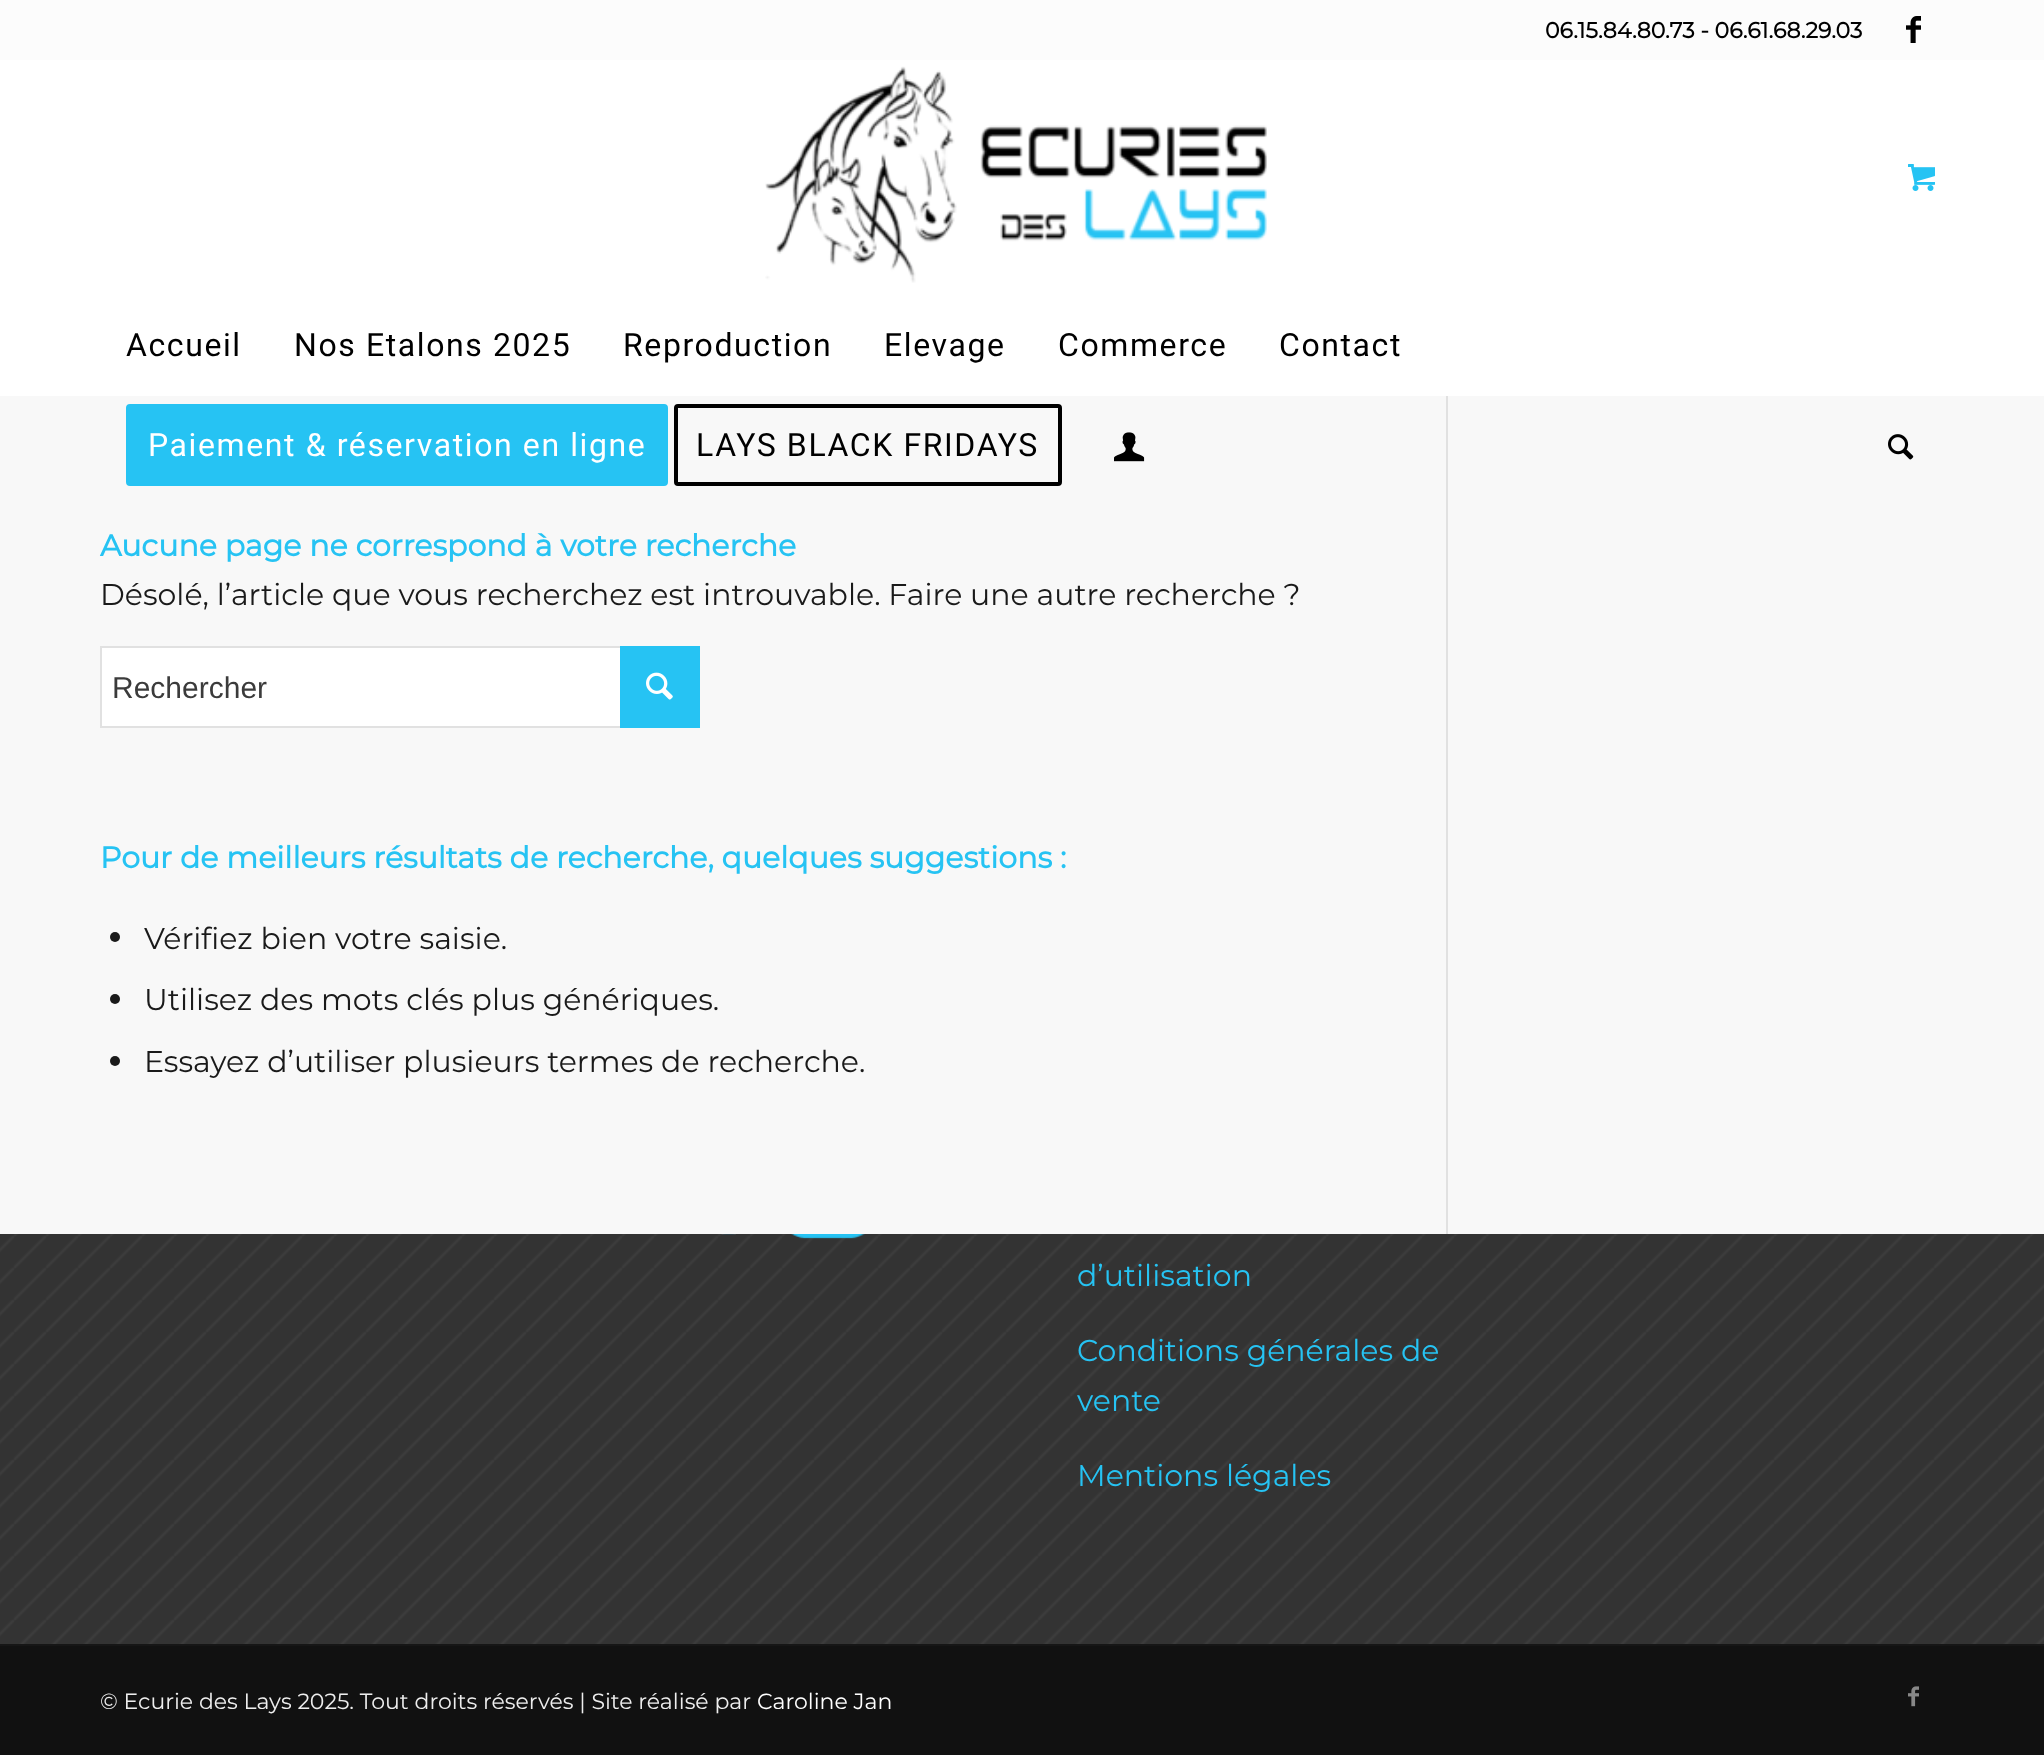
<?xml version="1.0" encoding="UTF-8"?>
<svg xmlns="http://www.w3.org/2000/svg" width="2044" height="1755">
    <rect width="100%" height="100%" fill="#FFFFFF"/>
    <rect x="0" y="0" width="2044" height="60" fill="#FCFCFC"/>
    <text x="1545" y="38" font-family="Montserrat" font-size="22" font-weight="700" fill="#000000">06.15.84.80.73 - 06.61.68.29.03</text>
    <image x="1906" y="16" width="15" height="27" href="img_01.png"/>
    <image x="765" y="66" width="502" height="217" href="img_02.png"/>
    <image x="1908" y="164" width="27" height="27" href="img_03.png"/>
    <text x="126" y="356" font-family="Roboto" font-size="32" letter-spacing="1.6" fill="#000000">Accueil</text>
    <text x="294" y="356" font-family="Roboto" font-size="32" letter-spacing="1.6" fill="#000000">Nos Etalons 2025</text>
    <text x="623" y="356" font-family="Roboto" font-size="32" letter-spacing="1.6" fill="#000000">Reproduction</text>
    <text x="884" y="356" font-family="Roboto" font-size="32" letter-spacing="1.6" fill="#000000">Elevage</text>
    <text x="1058" y="356" font-family="Roboto" font-size="32" letter-spacing="1.6" fill="#000000">Commerce</text>
    <text x="1279" y="356" font-family="Roboto" font-size="32" letter-spacing="1.6" fill="#000000">Contact</text>
    <rect x="0" y="396" width="2044" height="838" fill="#F8F8F8"/>
    <rect x="128" y="406" width="538" height="78" rx="2" fill="#26C3F3" stroke="#26C3F3" stroke-width="4"/>
    <text x="148" y="456" font-family="Roboto" font-size="32" letter-spacing="1.6" fill="#FFFFFF">Paiement &amp; réservation en ligne</text>
    <rect x="676" y="406" width="384" height="78" rx="2" fill="none" stroke="#000000" stroke-width="4"/>
    <text x="696" y="456" font-family="Roboto" font-size="32" letter-spacing="1.6" fill="#000000">LAYS BLACK FRIDAYS</text>
    <image x="1114" y="432" width="31" height="30" href="img_04.png"/>
    <image x="1888" y="434" width="26" height="26" href="img_05.png"/>
    <rect x="1446" y="396" width="2" height="838" fill="#E1E1E1"/>
    <text x="100" y="556" font-family="Montserrat" font-size="30" font-weight="700" fill="#26C3F3">Aucune page ne correspond à votre recherche</text>
    <text x="100" y="605" font-family="Montserrat" font-size="30" font-weight="100" fill="#1A1A1A">Désolé, l’article que vous recherchez est introuvable. Faire une autre recherche ?</text>
    <rect x="102" y="648" width="518" height="78" fill="#FFFFFF"/>
    <rect x="101" y="647" width="598" height="80" fill="none" stroke="#E1E1E1" stroke-width="2"/>
    <text x="112" y="698" font-family="Liberation Sans" font-size="30" fill="#3B3B3B">Rechercher</text>
    <rect x="620" y="646" width="80" height="82" fill="#26C3F3"/>
    <image x="646" y="672" width="27" height="28" href="img_06.png"/>
    <text x="100" y="868" font-family="Montserrat" font-size="30" font-weight="700" fill="#26C3F3">Pour de meilleurs résultats de recherche, quelques suggestions :</text>
    <circle cx="115" cy="937" r="5" fill="#1A1A1A"/>
    <text x="144" y="949" font-family="Montserrat" font-size="30" font-weight="100" fill="#1A1A1A">Vérifiez bien votre saisie.</text>
    <circle cx="115" cy="999" r="5" fill="#1A1A1A"/>
    <text x="144" y="1010" font-family="Montserrat" font-size="30" font-weight="100" fill="#1A1A1A">Utilisez des mots clés plus génériques.</text>
    <circle cx="115" cy="1061" r="5" fill="#1A1A1A"/>
    <text x="144" y="1072" font-family="Montserrat" font-size="30" font-weight="100" fill="#1A1A1A">Essayez d’utiliser plusieurs termes de recherche.</text>
    <rect x="0" y="1234" width="2044" height="410" fill="#333333"/>
    <image x="0" y="1234" width="2044" height="410" href="img_07.png"/>
    <image x="721" y="1234" width="15" height="1" href="img_08.png"/>
    <image x="791" y="1234" width="74" height="5" href="img_09.png"/>
    <text x="1077" y="1286" font-family="Montserrat" font-size="30" font-weight="100" fill="#26C3F3">d’utilisation</text>
    <text font-family="Montserrat" font-size="30" font-weight="100" fill="#26C3F3">
        <tspan x="1077" y="1361">Conditions générales de</tspan>
        <tspan x="1077" y="1411">vente</tspan>
    </text>
    <text x="1077" y="1486" font-family="Montserrat" font-size="30" font-weight="100" fill="#26C3F3">Mentions légales</text>
    <rect x="0" y="1646" width="2044" height="109" fill="#111111"/>
    <rect x="0" y="1644" width="2044" height="2" fill="#161616"/>
    <text x="100" y="1709" font-family="Montserrat" font-size="22" font-weight="100" fill="#EEEEEE">© Ecurie des Lays 2025. Tout droits réservés | Site réalisé par</text>
    <text x="757" y="1709" font-family="Montserrat" font-size="22" font-weight="100" fill="#FFFFFF">Caroline Jan</text>
    <image x="1908" y="1686" width="11" height="21" href="img_10.png"/>
</svg>
